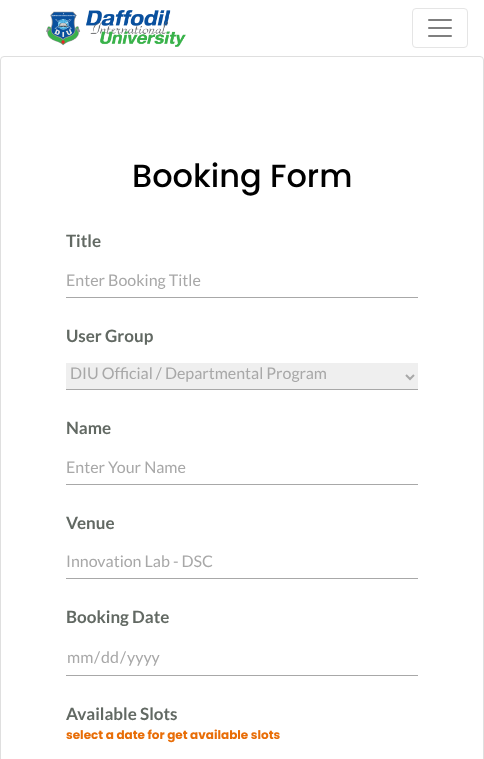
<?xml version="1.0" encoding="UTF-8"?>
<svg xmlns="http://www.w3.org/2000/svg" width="484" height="759">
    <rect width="100%" height="100%" fill="#FFFFFF"/>
    <image x="46" y="10" width="140" height="37" href="img_01.png"/>
    <rect x="412.5" y="8.5" width="55" height="39" rx="3.5" fill="none" stroke="#E5E5E5"/>
    <image x="428" y="19" width="24" height="18" href="img_02.png"/>
    <rect x="0.5" y="56.5" width="483" height="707" rx="3.5" fill="none" stroke="#DFDFDF"/>
    <text x="132" y="187" font-family="Poppins" font-size="32" font-weight="500" fill="#000000">Booking Form</text>
    <text x="66" y="247" font-family="Lato" font-size="17" font-weight="700" fill="#626963">Title</text>
    <rect x="66" y="297" width="352" height="1" fill="#A8A8A8"/>
    <text x="66" y="286" font-family="Lato" font-size="16" fill="#A8A8A8">Enter Booking Title</text>
    <text x="66" y="342" font-family="Lato" font-size="17" font-weight="700" fill="#626963">User Group</text>
    <rect x="66" y="363" width="352" height="26" fill="#EFEFEF"/>
    <rect x="66" y="389" width="352" height="1" fill="#A8A8A8"/>
    <path d="M 406 375 L 410 379 L 414 375" fill="none" stroke="#A8A8A8" stroke-width="2"/>
    <text x="70" y="379" font-family="Lato" font-size="16" fill="#A8A8A8">DIU Official / Departmental Program</text>
    <text x="66" y="434" font-family="Lato" font-size="17" font-weight="700" fill="#626963">Name</text>
    <rect x="66" y="484" width="352" height="1" fill="#A8A8A8"/>
    <text x="66" y="473" font-family="Lato" font-size="16" fill="#A8A8A8">Enter Your Name</text>
    <text x="66" y="529" font-family="Lato" font-size="17" font-weight="700" fill="#626963">Venue</text>
    <rect x="66" y="578" width="352" height="1" fill="#A8A8A8"/>
    <text x="66" y="567" font-family="Lato" font-size="16" fill="#A8A8A8">Innovation Lab - DSC</text>
    <text x="66" y="623" font-family="Lato" font-size="17" font-weight="700" fill="#626963">Booking Date</text>
    <rect x="66" y="675" width="352" height="1" fill="#A8A8A8"/>
    <text x="67" y="663" font-family="Lato" font-size="16" fill="#A8A8A8">mm</text>
    <text x="94" y="663" font-family="Lato" font-size="16" fill="#A8A8A8">/</text>
    <text x="101" y="663" font-family="Lato" font-size="16" fill="#A8A8A8">dd</text>
    <text x="120" y="663" font-family="Lato" font-size="16" fill="#A8A8A8">/</text>
    <text x="127" y="663" font-family="Lato" font-size="16" fill="#A8A8A8">yyyy</text>
    <text x="66" y="720" font-family="Lato" font-size="17" font-weight="700" fill="#626963">Available Slots</text>
    <text x="66" y="739" font-family="Poppins" font-size="12" font-weight="700" fill="#E86D07">select a date for get available slots</text>
</svg>
